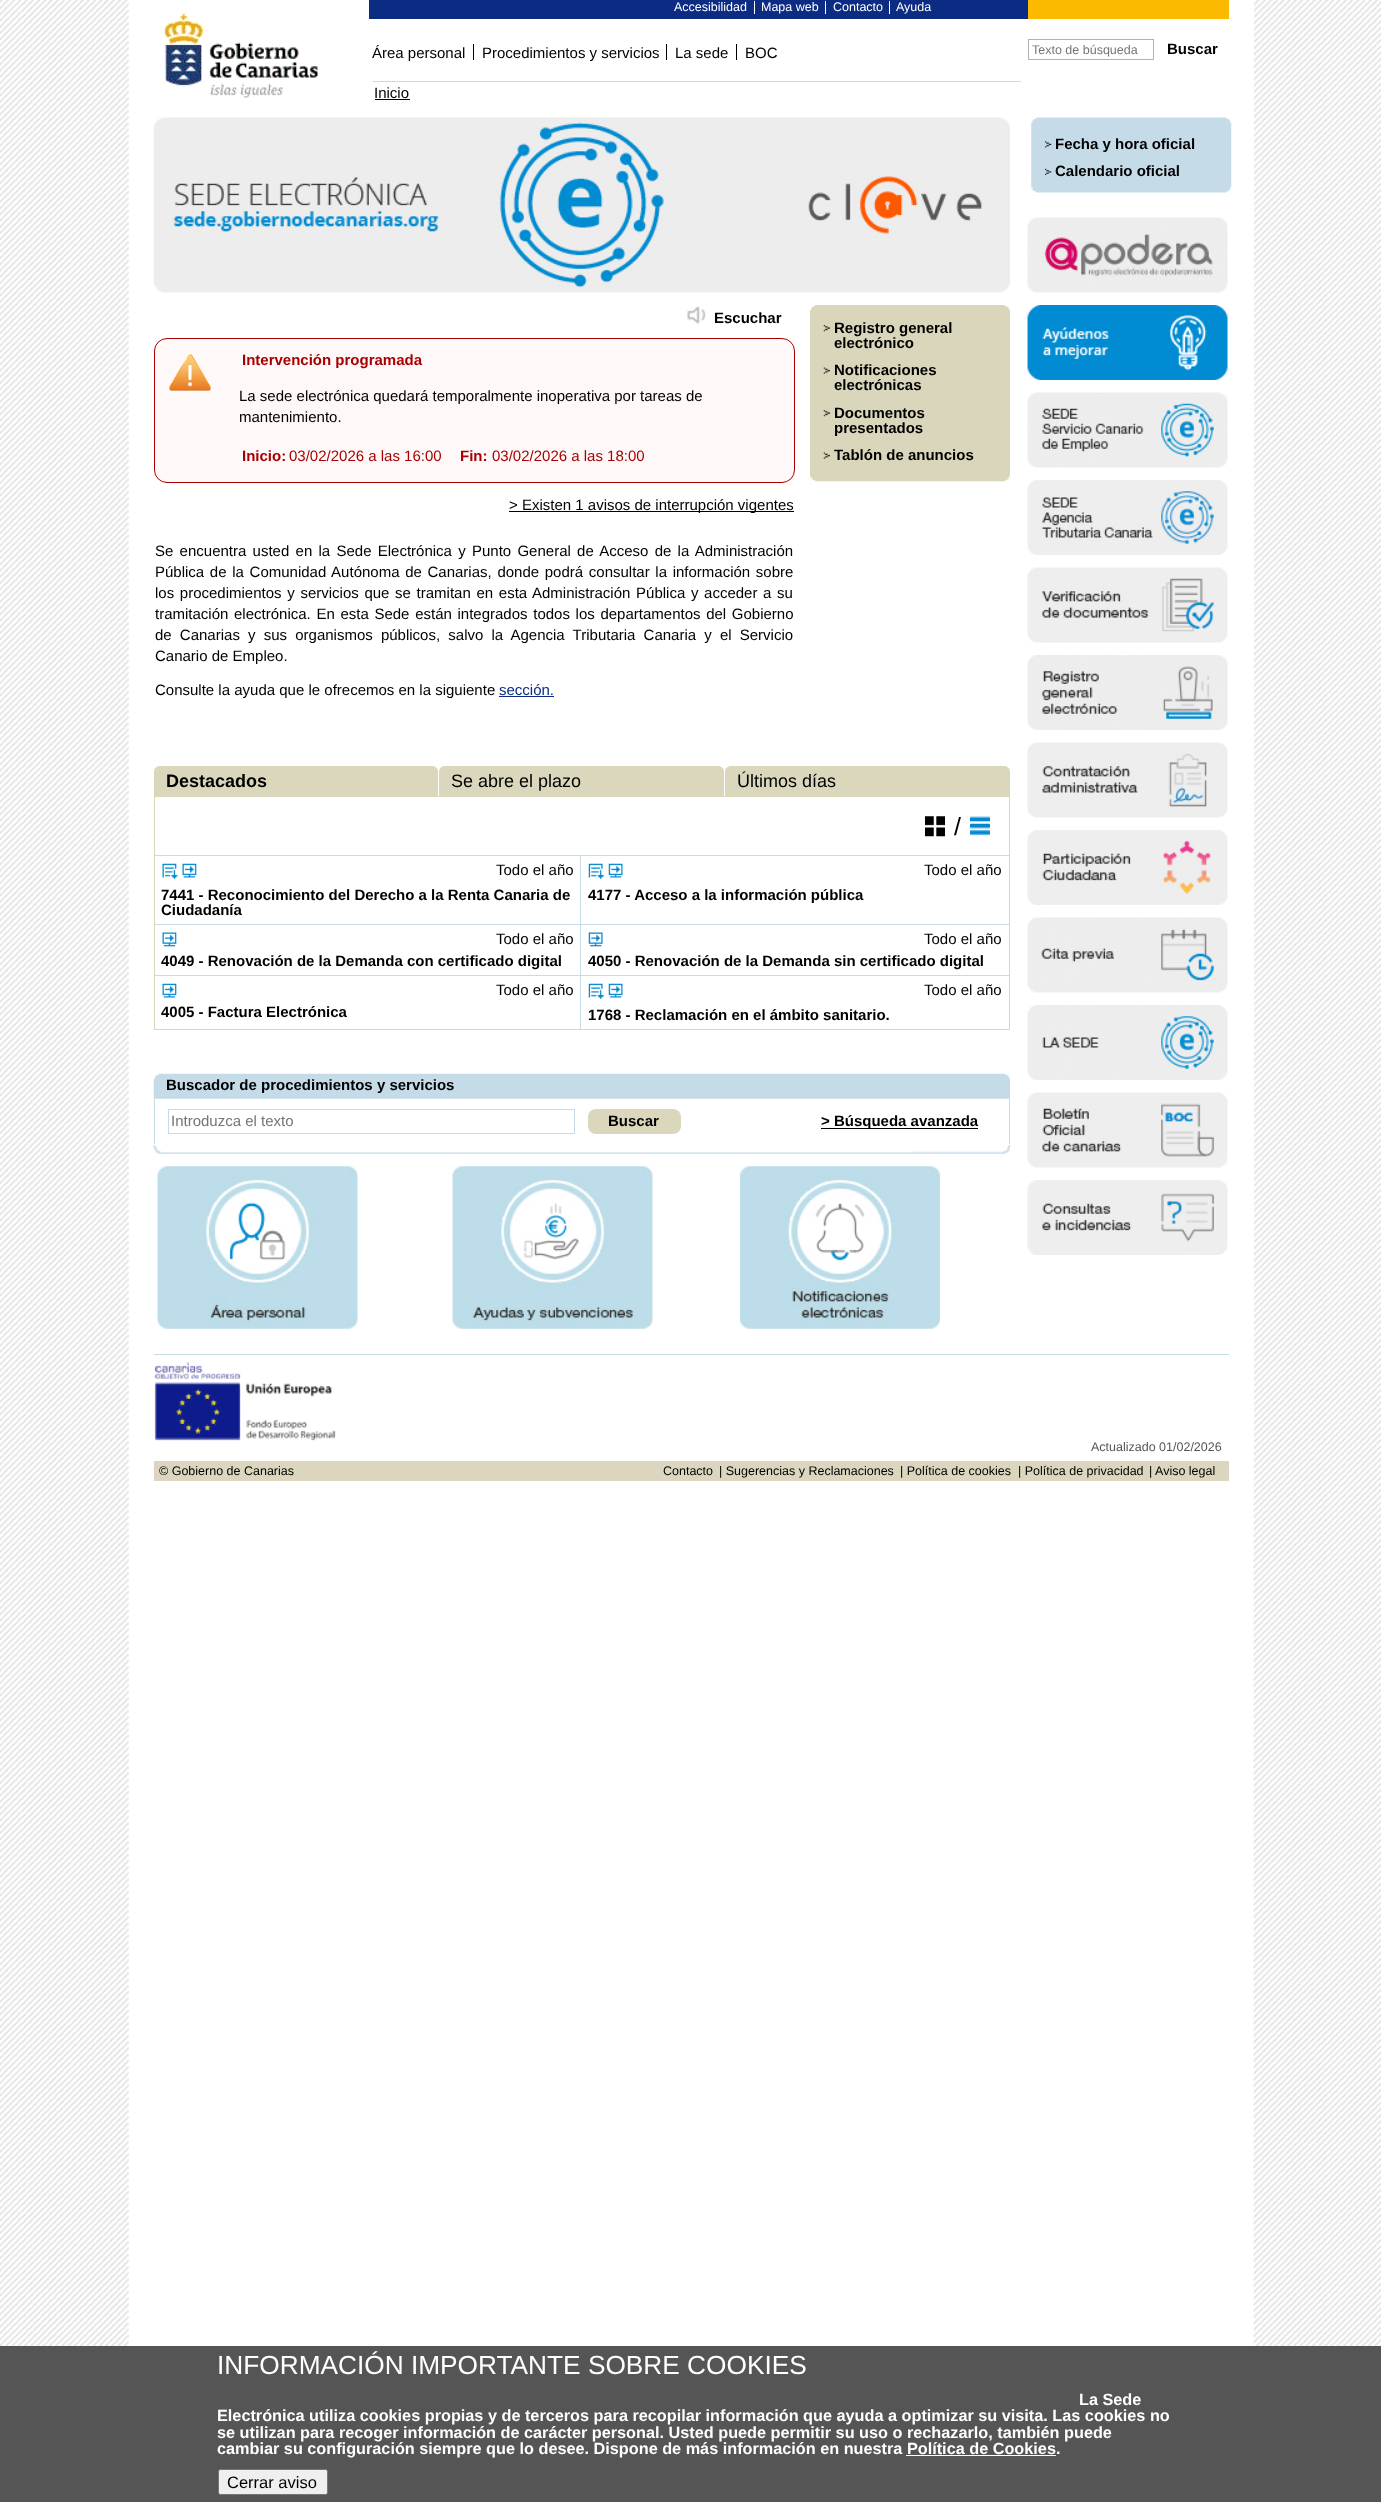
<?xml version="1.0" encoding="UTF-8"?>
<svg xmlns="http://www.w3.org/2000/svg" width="1381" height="2502">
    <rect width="100%" height="100%" fill="#FFFFFF"/>
    <image x="0" y="0" width="1381" height="2346" href="img_01.png"/>
    <rect x="1253" y="3" width="1" height="1478" fill="#FFFFFF"/>
    <image x="164" y="13" width="154" height="85" href="img_02.png"/>
    <rect x="1028" y="0" width="201" height="19" fill="#FBBA00"/>
    <rect x="369" y="0" width="659" height="19" fill="#0C2C84"/>
    <text x="674" y="11" font-family="Liberation Sans" font-size="12.5" fill="#FFFFFF">Accesibilidad</text>
    <rect x="754" y="1" width="1" height="13" fill="#FFFFFF"/>
    <text x="761" y="11" font-family="Liberation Sans" font-size="12.5" fill="#FFFFFF">Mapa web</text>
    <rect x="825" y="1" width="1" height="13" fill="#FFFFFF"/>
    <text x="833" y="11" font-family="Liberation Sans" font-size="12.5" fill="#FFFFFF">Contacto</text>
    <rect x="889" y="1" width="1" height="13" fill="#FFFFFF"/>
    <text x="896" y="11" font-family="Liberation Sans" font-size="12.5" fill="#FFFFFF">Ayuda</text>
    <text x="372" y="58" font-family="Liberation Sans" font-size="15" fill="#000000">Área personal</text>
    <rect x="473" y="44" width="1" height="16" fill="#000000"/>
    <text x="482" y="58" font-family="Liberation Sans" font-size="15" fill="#000000">Procedimientos y servicios</text>
    <rect x="666" y="44" width="1" height="16" fill="#000000"/>
    <text x="675" y="58" font-family="Liberation Sans" font-size="15" fill="#000000">La sede</text>
    <rect x="736" y="44" width="1" height="16" fill="#000000"/>
    <text x="745" y="58" font-family="Liberation Sans" font-size="15" fill="#000000">BOC</text>
    <rect x="373" y="81" width="648" height="1" fill="#C5DCE8"/>
    <text x="374" y="98" font-family="Liberation Sans" font-size="15" fill="#000000">Inicio</text>
    <rect x="375" y="99" width="35" height="1" fill="#000000"/>
    <rect x="1028.5" y="39.5" width="125" height="20" fill="none" stroke="#B0B1B2"/>
    <text x="1032" y="54" font-family="Liberation Sans" font-size="12.5" fill="#757575">Texto de búsqueda</text>
    <text x="1167" y="54" font-family="Liberation Sans" font-size="15" font-weight="700" fill="#000000">Buscar</text>
    <image x="153" y="117" width="857" height="176" href="img_03.png"/>
    <image x="1031" y="117" width="201" height="76" href="img_04.png"/>
    <image x="1045" y="141" width="7" height="7" href="img_05.png"/>
    <text x="1055" y="149" font-family="Liberation Sans" font-size="15" font-weight="700" fill="#000000">Fecha y hora oficial</text>
    <image x="1045" y="168" width="7" height="7" href="img_06.png"/>
    <text x="1055" y="176" font-family="Liberation Sans" font-size="15" font-weight="700" fill="#000000">Calendario oficial</text>
    <image x="1027" y="217" width="201" height="76" href="img_07.png"/>
    <image x="687" y="306" width="19" height="18" href="img_08.png"/>
    <text x="714" y="323" font-family="Liberation Sans" font-size="15" font-weight="700" fill="#000000">Escuchar</text>
    <rect x="154.5" y="338.5" width="640" height="144" rx="12.5" fill="#FEF8F8" stroke="#A80000"/>
    <image x="169" y="353" width="42" height="38" href="img_09.png"/>
    <text x="242" y="365" font-family="Liberation Sans" font-size="15" font-weight="700" fill="#A80000">Intervención programada</text>
    <text font-family="Liberation Sans" font-size="15" fill="#000000">
        <tspan x="239" y="401">La sede electrónica quedará temporalmente inoperativa por tareas de</tspan>
        <tspan x="239" y="422">mantenimiento.</tspan>
    </text>
    <text x="242" y="461" font-family="Liberation Sans" font-size="15" font-weight="700" fill="#A80000">Inicio:</text>
    <text x="289" y="461" font-family="Liberation Sans" font-size="15" fill="#A80000">03/02/2026 a las 16:00</text>
    <text x="460" y="461" font-family="Liberation Sans" font-size="15" font-weight="700" fill="#A80000">Fin:</text>
    <text x="492" y="461" font-family="Liberation Sans" font-size="15" fill="#A80000">03/02/2026 a las 18:00</text>
    <rect x="509" y="511" width="285" height="1" fill="#000000"/>
    <text x="509" y="510" font-family="Liberation Sans" font-size="15" fill="#000000">&gt; Existen 1 avisos de interrupción vigentes</text>
    <text font-family="Liberation Sans" font-size="15" fill="#000000">
        <tspan x="155" y="556" word-spacing="2.1">Se encuentra usted en la Sede Electrónica y Punto General de Acceso de la Administración</tspan>
        <tspan x="155" y="577" word-spacing="1.5">Pública de la Comunidad Autónoma de Canarias, donde podrá consultar la información sobre</tspan>
        <tspan x="155" y="598" word-spacing="1.5">los procedimientos y servicios que se tramitan en esta Administración Pública y acceder a su</tspan>
        <tspan x="155" y="619" word-spacing="1.5">tramitación electrónica. En esta Sede están integrados todos los departamentos del Gobierno</tspan>
        <tspan x="155" y="640" word-spacing="4">de Canarias y sus organismos públicos, salvo la Agencia Tributaria Canaria y el Servicio</tspan>
        <tspan x="155" y="661">Canario de Empleo.</tspan>
    </text>
    <text x="155" y="695" font-family="Liberation Sans" font-size="15" fill="#000000">Consulte la ayuda que le ofrecemos en la siguiente</text>
    <text x="499" y="695" font-family="Liberation Sans" font-size="15" fill="#0C2C84">sección.</text>
    <rect x="499" y="696" width="55" height="1" fill="#0C2C84"/>
    <path d="M 160 766 H 432 C 435.5 766 438 768.5 438 772 V 796 H 154 V 772 C 154 768.5 156.5 766 160 766 Z" fill="#DAD7BD"/>
    <text x="166" y="787" font-family="Liberation Sans" font-size="18" font-weight="700" fill="#000000">Destacados</text>
    <path d="M 445 766 H 718 C 721.5 766 724 768.5 724 772 V 796 H 439 V 772 C 439 768.5 441.5 766 445 766 Z" fill="#DAD7BD"/>
    <text x="451" y="787" font-family="Liberation Sans" font-size="18" fill="#000000">Se abre el plazo</text>
    <path d="M 731 766 H 1004 C 1007.5 766 1010 768.5 1010 772 V 796 H 725 V 772 C 725 768.5 727.5 766 731 766 Z" fill="#DAD7BD"/>
    <text x="737" y="787" font-family="Liberation Sans" font-size="18" fill="#000000">Últimos días</text>
    <rect x="154.5" y="796.5" width="855" height="233" fill="none" stroke="#DAD7BD"/>
    <image x="925" y="816" width="20" height="21" href="img_10.png"/>
    <text x="954" y="835" font-family="Liberation Sans" font-size="25" fill="#000000">/</text>
    <image x="970" y="816" width="20" height="20" href="img_11.png"/>
    <rect x="155" y="855" width="854" height="1" fill="#C5DCE8"/>
    <rect x="580" y="855" width="1" height="69" fill="#C5DCE8"/>
    <image x="162" y="863" width="16" height="16" href="img_12.png"/>
    <image x="182" y="863" width="15" height="15" href="img_13.png"/>
    <text x="496" y="875" font-family="Liberation Sans" font-size="15" fill="#000000">Todo el año</text>
    <text font-family="Liberation Sans" font-size="15" font-weight="700" fill="#000000">
        <tspan x="161" y="900">7441 - Reconocimiento del Derecho a la Renta Canaria de</tspan>
        <tspan x="161" y="915">Ciudadanía</tspan>
    </text>
    <image x="588" y="863" width="16" height="16" href="img_14.png"/>
    <image x="608" y="863" width="15" height="15" href="img_15.png"/>
    <text x="924" y="875" font-family="Liberation Sans" font-size="15" fill="#000000">Todo el año</text>
    <text x="588" y="900" font-family="Liberation Sans" font-size="15" font-weight="700" fill="#000000">4177 - Acceso a la información pública</text>
    <rect x="155" y="924" width="854" height="1" fill="#C5DCE8"/>
    <rect x="580" y="924" width="1" height="51" fill="#C5DCE8"/>
    <image x="162" y="932" width="15" height="15" href="img_16.png"/>
    <text x="496" y="944" font-family="Liberation Sans" font-size="15" fill="#000000">Todo el año</text>
    <text x="161" y="966" font-family="Liberation Sans" font-size="15" font-weight="700" fill="#000000">4049 - Renovación de la Demanda con certificado digital</text>
    <image x="588" y="932" width="15" height="15" href="img_17.png"/>
    <text x="924" y="944" font-family="Liberation Sans" font-size="15" fill="#000000">Todo el año</text>
    <text x="588" y="966" font-family="Liberation Sans" font-size="15" font-weight="700" fill="#000000">4050 - Renovación de la Demanda sin certificado digital</text>
    <rect x="155" y="975" width="854" height="1" fill="#C5DCE8"/>
    <rect x="580" y="975" width="1" height="54" fill="#C5DCE8"/>
    <image x="162" y="983" width="15" height="15" href="img_13.png"/>
    <text x="496" y="995" font-family="Liberation Sans" font-size="15" fill="#000000">Todo el año</text>
    <text x="161" y="1017" font-family="Liberation Sans" font-size="15" font-weight="700" fill="#000000">4005 - Factura Electrónica</text>
    <image x="588" y="983" width="16" height="16" href="img_14.png"/>
    <image x="608" y="983" width="15" height="15" href="img_15.png"/>
    <text x="924" y="995" font-family="Liberation Sans" font-size="15" fill="#000000">Todo el año</text>
    <text x="588" y="1020" font-family="Liberation Sans" font-size="15" font-weight="700" fill="#000000">1768 - Reclamación en el ámbito sanitario.</text>
    <image x="153" y="1145" width="857" height="9" href="img_18.png"/>
    <image x="153" y="1073" width="857" height="26" href="img_19.png"/>
    <text x="166" y="1090" font-family="Liberation Sans" font-size="15" font-weight="700" fill="#000000">Buscador de procedimientos y servicios</text>
    <rect x="1009" y="1099" width="1" height="45" fill="#C5DCE8"/>
    <rect x="154" y="1099" width="1" height="45" fill="#C5DCE8"/>
    <rect x="168.5" y="1109.5" width="406" height="24" fill="none" stroke="#C5DCE8"/>
    <text x="171" y="1126" font-family="Liberation Sans" font-size="15" fill="#757575">Introduzca el texto</text>
    <rect x="588" y="1109" width="93" height="25" rx="8" fill="#DAD7BD"/>
    <text x="608" y="1126" font-family="Liberation Sans" font-size="15" font-weight="700" fill="#000000">Buscar</text>
    <rect x="821" y="1128" width="157" height="1" fill="#000000"/>
    <text x="821" y="1126" font-family="Liberation Sans" font-size="15" font-weight="700" fill="#000000">&gt; Búsqueda avanzada</text>
    <image x="810" y="475" width="200" height="7" href="img_20.png"/>
    <image x="810" y="305" width="200" height="5" href="img_21.png"/>
    <rect x="810" y="310" width="200" height="165" fill="#D9D6BC"/>
    <image x="823" y="325" width="7" height="7" href="img_22.png"/>
    <text font-family="Liberation Sans" font-size="15" font-weight="700" fill="#000000">
        <tspan x="834" y="333">Registro general</tspan>
        <tspan x="834" y="348">electrónico</tspan>
    </text>
    <image x="823" y="367" width="7" height="7" href="img_23.png"/>
    <text font-family="Liberation Sans" font-size="15" font-weight="700" fill="#000000">
        <tspan x="834" y="375">Notificaciones</tspan>
        <tspan x="834" y="390">electrónicas</tspan>
    </text>
    <image x="823" y="410" width="7" height="7" href="img_22.png"/>
    <text font-family="Liberation Sans" font-size="15" font-weight="700" fill="#000000">
        <tspan x="834" y="418">Documentos</tspan>
        <tspan x="834" y="433">presentados</tspan>
    </text>
    <image x="823" y="452" width="7" height="7" href="img_23.png"/>
    <text x="834" y="460" font-family="Liberation Sans" font-size="15" font-weight="700" fill="#000000">Tablón de anuncios</text>
    <image x="157" y="1166" width="201" height="163" href="img_24.png"/>
    <image x="452" y="1166" width="201" height="163" href="img_25.png"/>
    <image x="740" y="1166" width="200" height="163" href="img_26.png"/>
    <image x="1027" y="305" width="201" height="75" href="img_27.png"/>
    <image x="1027" y="392" width="201" height="76" href="img_28.png"/>
    <image x="1027" y="480" width="201" height="75" href="img_29.png"/>
    <image x="1027" y="567" width="201" height="76" href="img_30.png"/>
    <image x="1027" y="655" width="201" height="75" href="img_31.png"/>
    <image x="1027" y="742" width="201" height="76" href="img_32.png"/>
    <image x="1027" y="830" width="201" height="75" href="img_33.png"/>
    <image x="1027" y="917" width="201" height="76" href="img_34.png"/>
    <image x="1027" y="1005" width="201" height="75" href="img_35.png"/>
    <image x="1027" y="1092" width="201" height="76" href="img_36.png"/>
    <image x="1027" y="1180" width="201" height="75" href="img_37.png"/>
    <rect x="154" y="1354" width="1075" height="1" fill="#C5DCE8"/>
    <image x="154" y="1362" width="182" height="79" href="img_38.png"/>
    <text x="1091" y="1451" font-family="Liberation Sans" font-size="12.5" fill="#555555">Actualizado 01/02/2026</text>
    <rect x="154" y="1461" width="1075" height="20" fill="#DBD6BD"/>
    <text x="159" y="1475" font-family="Liberation Sans" font-size="12.5" fill="#000000">© Gobierno de Canarias</text>
    <text x="663" y="1475" font-family="Liberation Sans" font-size="12.5" fill="#000000">Contacto</text>
    <text x="719" y="1475" font-family="Liberation Sans" font-size="12.5" fill="#000000">| Sugerencias y Reclamaciones</text>
    <text x="900" y="1475" font-family="Liberation Sans" font-size="12.5" fill="#000000">| Política de cookies</text>
    <text x="1018" y="1475" font-family="Liberation Sans" font-size="12.5" fill="#000000">| Política de privacidad</text>
    <text x="1149" y="1475" font-family="Liberation Sans" font-size="12.5" fill="#000000">| Aviso legal</text>
    <rect x="0" y="2346" width="1381" height="156" fill="#555555"/>
    <text x="217" y="2374" font-family="Liberation Sans" font-size="26.25" fill="#FFFFFF">INFORMACIÓN IMPORTANTE SOBRE COOKIES</text>
    <text x="1079" y="2405" font-family="Liberation Sans" font-size="16.25" font-weight="700" fill="#FFFFFF">La Sede</text>
    <text font-family="Liberation Sans" font-size="16.25" font-weight="700" fill="#FFFFFF">
        <tspan x="217" y="2421">Electrónica utiliza cookies propias y de terceros para recopilar información que ayuda a optimizar su visita. Las cookies no</tspan>
        <tspan x="217" y="2438">se utilizan para recoger información de carácter personal. Usted puede permitir su uso o rechazarlo, también puede</tspan>
        <tspan x="217" y="2454">cambiar su configuración siempre que lo desee. Dispone de más información en nuestra Política de Cookies.</tspan>
    </text>
    <rect x="906" y="2455" width="150" height="1" fill="#FFFFFF"/>
    <rect x="218.5" y="2469.5" width="109" height="25" rx="2" fill="#EFEFEF" stroke="#767676"/>
    <text x="227" y="2488" font-family="Liberation Sans" font-size="16.5" fill="#000000">Cerrar aviso</text>
</svg>
